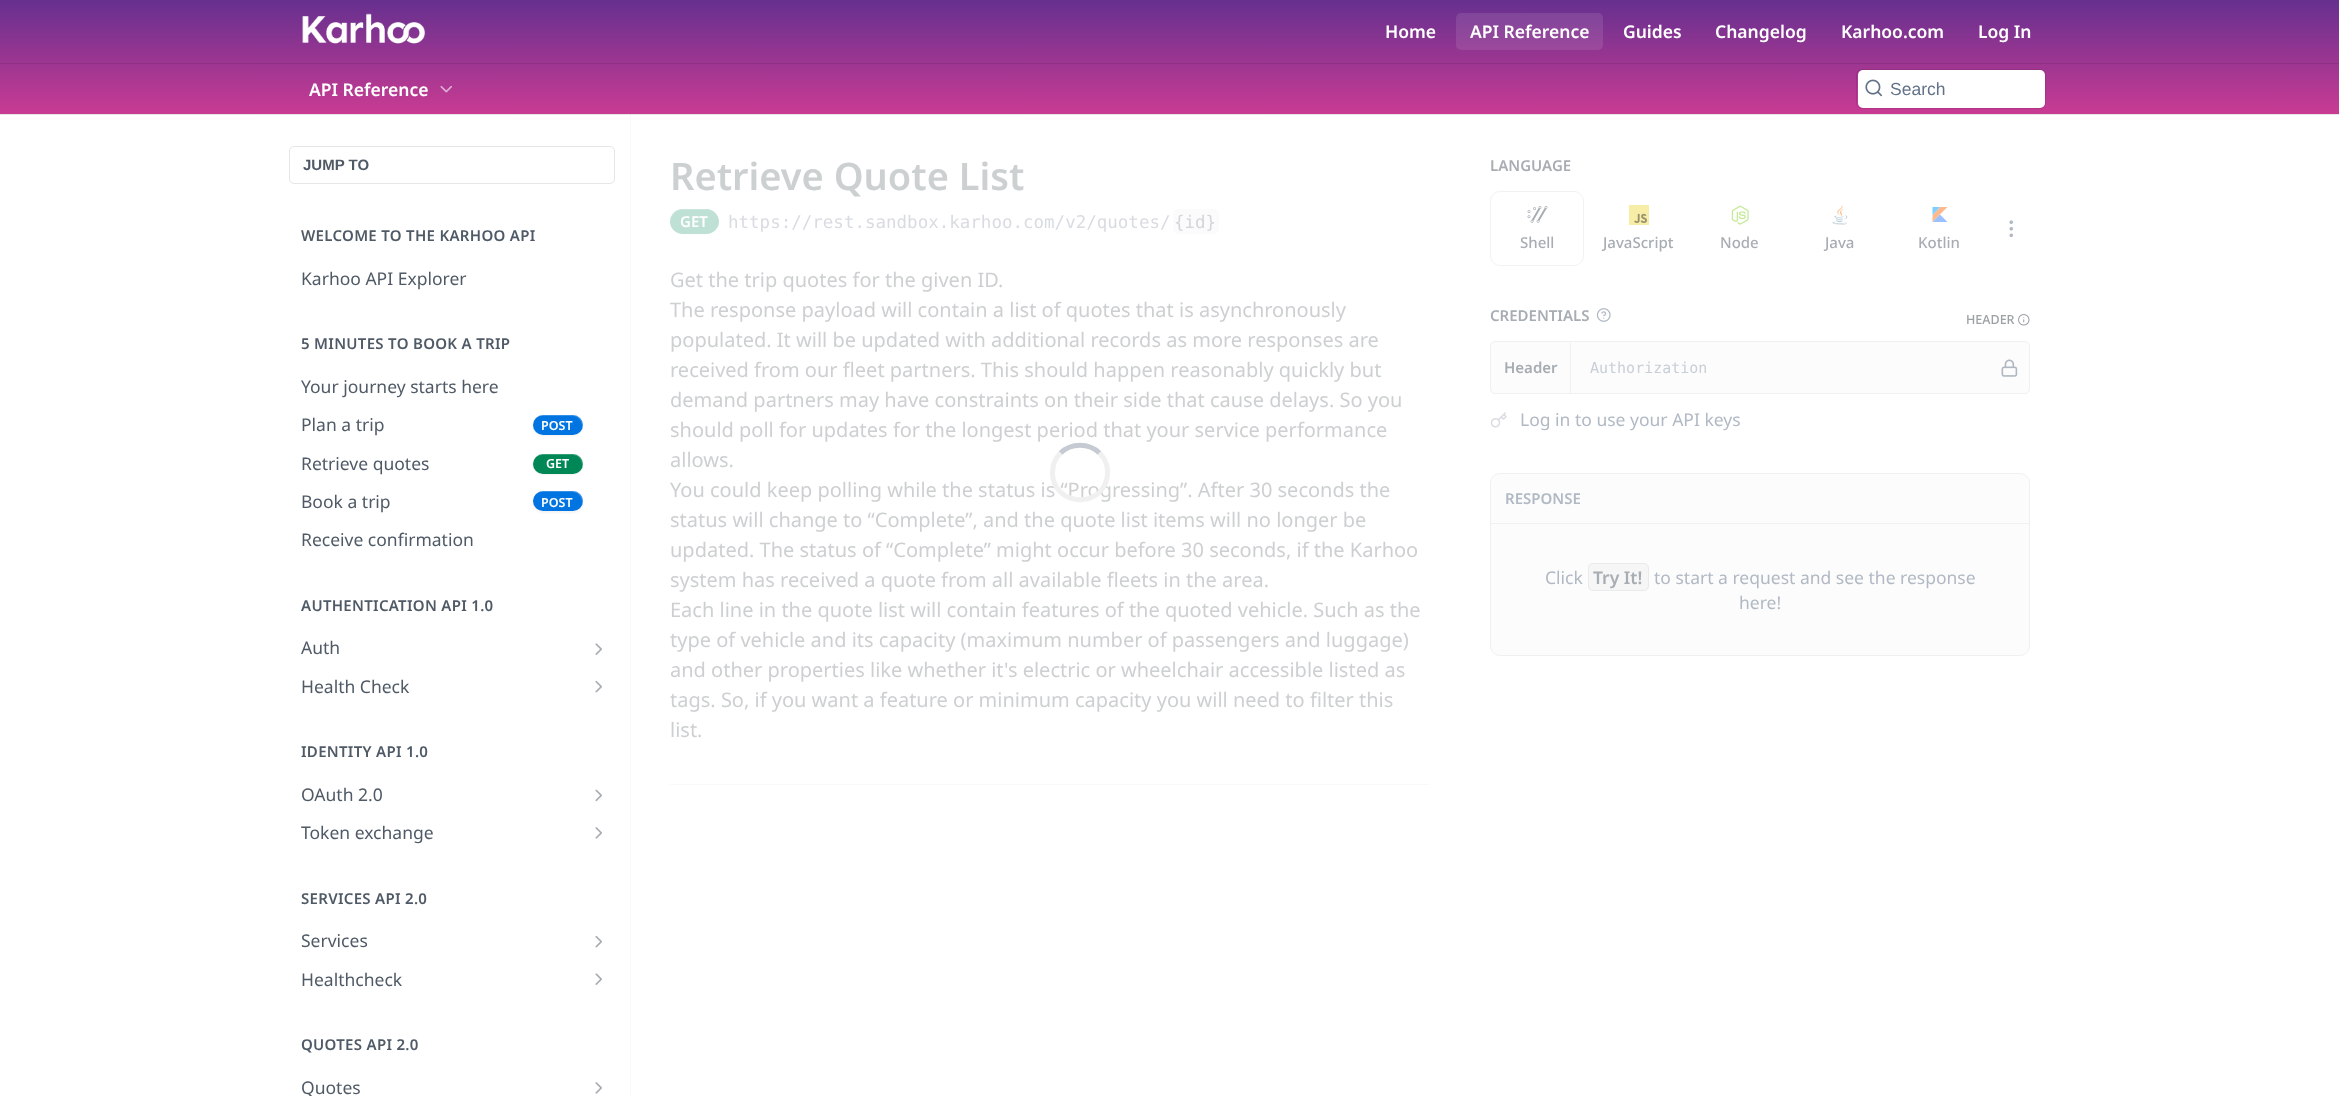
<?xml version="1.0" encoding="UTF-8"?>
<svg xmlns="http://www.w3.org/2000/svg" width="2339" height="1096">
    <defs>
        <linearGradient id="g1" gradientUnits="userSpaceOnUse" x1="1170" y1="0" x2="1170" y2="114"><stop offset="0" stop-color="#66308F"/><stop offset="1" stop-color="#C93B93"/></linearGradient>
        <filter id="blur1" x="-50%" y="-200%" width="200%" height="500%"><feGaussianBlur stdDeviation="1"/></filter>
    </defs>
    <rect width="100%" height="100%" fill="#FFFFFF"/>
    <rect x="0" y="114" width="2339" height="1" fill="#E6E6E6"/>
    <rect x="0" y="0" width="2339" height="114" fill="url(#g1)"/>
    <rect x="0" y="63" width="2339" height="1" fill="#8D3183"/>
    <image x="302" y="13" width="123" height="31" href="img_01.png"/>
    <text x="1385" y="38" font-family="Noto Sans" font-size="17.5" font-weight="600" fill="#FFFFFF">Home</text>
    <rect x="1456" y="13" width="147" height="37" rx="5" fill="#FFFFFF" fill-opacity="0.1"/>
    <text x="1470" y="38" font-family="Noto Sans" font-size="17.5" font-weight="600" fill="#FFFFFF">API Reference</text>
    <text x="1623" y="38" font-family="Noto Sans" font-size="17.5" font-weight="600" fill="#FFFFFF">Guides</text>
    <text x="1715" y="38" font-family="Noto Sans" font-size="17.5" font-weight="600" fill="#FFFFFF">Changelog</text>
    <text x="1841" y="38" font-family="Noto Sans" font-size="17.5" font-weight="600" fill="#FFFFFF">Karhoo.com</text>
    <text x="1978" y="38" font-family="Noto Sans" font-size="17.5" font-weight="600" fill="#FFFFFF">Log In</text>
    <text x="309" y="96" font-family="Noto Sans" font-size="17.5" font-weight="600" fill="#FFFFFF">API Reference</text>
    <image x="440" y="85" width="12" height="8" href="img_02.png"/>
    <rect x="1856.5" y="69.5" width="189" height="39" rx="5.5" fill="none" stroke="#000000" stroke-opacity="0.1"/>
    <rect x="1858" y="70" width="187" height="38" rx="5" fill="#FFFFFF"/>
    <image x="1865" y="79" width="17" height="18" href="img_03.png"/>
    <text x="1890" y="95" font-family="Liberation Sans" font-size="17.5" fill="#637288">Search</text>
    <rect x="630" y="114" width="1" height="982" fill="#F9F9F9"/>
    <rect x="630" y="114" width="1" height="1" fill="#E0E0E0"/>
    <rect x="289.5" y="146.5" width="325" height="37" rx="4.5" fill="none" stroke="#E6E6E6"/>
    <text x="303" y="170" font-family="Liberation Sans" font-size="15" font-weight="700" fill="#4F5A66">JUMP TO</text>
    <text x="301" y="241" font-family="Noto Sans" font-size="15" font-weight="600" letter-spacing="0.3" fill="#4F5A66">WELCOME TO THE KARHOO API</text>
    <text x="301" y="285" font-family="Noto Sans" font-size="17.5" fill="#4F5A66">Karhoo API Explorer</text>
    <text x="301" y="349" font-family="Noto Sans" font-size="15" font-weight="600" letter-spacing="0.3" fill="#4F5A66">5 MINUTES TO BOOK A TRIP</text>
    <text x="301" y="393" font-family="Noto Sans" font-size="17.5" fill="#4F5A66">Your journey starts here</text>
    <text x="301" y="431" font-family="Noto Sans" font-size="17.5" fill="#4F5A66">Plan a trip</text>
    <rect x="533" y="416" width="50" height="20" rx="10" fill="#000000" fill-opacity="0.05" filter="url(#blur1)"/>
    <rect x="533" y="415" width="50" height="20" rx="10" fill="#0074E1"/>
    <path d="M 542 416 H 572 C 578 416 582 421 582 426 C 582 428 582 430 581 431 C 582 430 583 427 583 425 C 583 419 579 415 573 415 H 543 C 539 415 536 417 534 420 C 536 418 539 416 542 416 Z" fill="#FFFFFF" fill-opacity="0.2"/>
    <text x="541" y="430" font-family="Noto Sans" font-size="12.5" font-weight="600" fill="#FFFFFF">POST</text>
    <text x="301" y="470" font-family="Noto Sans" font-size="17.5" fill="#4F5A66">Retrieve quotes</text>
    <rect x="533" y="455" width="50" height="20" rx="10" fill="#000000" fill-opacity="0.05" filter="url(#blur1)"/>
    <rect x="533" y="454" width="50" height="20" rx="10" fill="#008756"/>
    <path d="M 542 455 H 572 C 578 455 582 459 582 465 C 582 467 582 469 581 470 C 582 469 583 466 583 464 C 583 458 579 454 573 454 H 543 C 540 454 537 455 535 458 C 537 456 540 455 542 455 Z" fill="#FFFFFF" fill-opacity="0.2"/>
    <text x="546" y="468" font-family="Noto Sans" font-size="12.5" font-weight="600" fill="#FFFFFF">GET</text>
    <text x="301" y="508" font-family="Noto Sans" font-size="17.5" fill="#4F5A66">Book a trip</text>
    <rect x="533" y="493" width="50" height="20" rx="10" fill="#000000" fill-opacity="0.05" filter="url(#blur1)"/>
    <rect x="533" y="491" width="50" height="20" rx="10" fill="#0074E1"/>
    <path d="M 542 492 H 572 C 578 492 582 497 582 502 C 582 504 582 506 581 507 C 582 506 583 503 583 501 C 583 495 579 491 573 491 H 543 C 539 491 536 493 534 496 C 536 494 539 492 542 492 Z" fill="#FFFFFF" fill-opacity="0.2"/>
    <text x="541" y="507" font-family="Noto Sans" font-size="12.5" font-weight="600" fill="#FFFFFF">POST</text>
    <text x="301" y="546" font-family="Noto Sans" font-size="17.5" fill="#4F5A66">Receive confirmation</text>
    <text x="301" y="611" font-family="Noto Sans" font-size="15" font-weight="600" letter-spacing="0.3" fill="#4F5A66">AUTHENTICATION API 1.0</text>
    <text x="301" y="654" font-family="Noto Sans" font-size="17.5" fill="#4F5A66">Auth</text>
    <image x="595" y="643" width="7" height="12" href="img_04.png"/>
    <text x="301" y="693" font-family="Noto Sans" font-size="17.5" fill="#4F5A66">Health Check</text>
    <image x="595" y="680" width="7" height="13" href="img_05.png"/>
    <text x="301" y="757" font-family="Noto Sans" font-size="15" font-weight="600" letter-spacing="0.3" fill="#4F5A66">IDENTITY API 1.0</text>
    <text x="301" y="801" font-family="Noto Sans" font-size="17.5" fill="#4F5A66">OAuth 2.0</text>
    <image x="595" y="789" width="7" height="13" href="img_06.png"/>
    <text x="301" y="839" font-family="Noto Sans" font-size="17.5" fill="#4F5A66">Token exchange</text>
    <image x="595" y="827" width="7" height="12" href="img_07.png"/>
    <text x="301" y="904" font-family="Noto Sans" font-size="15" font-weight="600" letter-spacing="0.3" fill="#4F5A66">SERVICES API 2.0</text>
    <text x="301" y="947" font-family="Noto Sans" font-size="17.5" fill="#4F5A66">Services</text>
    <image x="595" y="935" width="7" height="13" href="img_05.png"/>
    <text x="301" y="986" font-family="Noto Sans" font-size="17.5" fill="#4F5A66">Healthcheck</text>
    <image x="595" y="973" width="7" height="12" href="img_04.png"/>
    <text x="301" y="1050" font-family="Noto Sans" font-size="15" font-weight="600" letter-spacing="0.3" fill="#4F5A66">QUOTES API 2.0</text>
    <text x="301" y="1094" font-family="Noto Sans" font-size="17.5" fill="#4F5A66">Quotes</text>
    <image x="595" y="1082" width="7" height="12" href="img_07.png"/>
    <rect x="670" y="784" width="760" height="1" fill="#F9F9F9"/>
    <text x="670" y="190" font-family="Noto Sans" font-size="38" font-weight="600" fill="#CDD0D1">Retrieve Quote List</text>
    <rect x="670" y="209" width="49" height="25" rx="12.5" fill="#BFE1D5"/>
    <path d="M 682 210 H 706 C 713 210 719 216 719 222 C 719 207 704 209 694 209 C 685 209 670 207 670 222 C 670 216 676 210 682 210 Z" fill="#FFFFFF" fill-opacity="0.2"/>
    <text x="680" y="227" font-family="Noto Sans" font-size="15" font-weight="600" fill="#FFFFFF">GET</text>
    <text x="728" y="228" font-family="DejaVu Sans Mono" font-size="17.5" fill="#D8DCE1">https://rest.sandbox.karhoo.com/v2/quotes/</text>
    <rect x="1173" y="209" width="46" height="25" rx="5" fill="#FBFBFB"/>
    <text x="1174" y="228" font-family="DejaVu Sans Mono" font-size="17.5" fill="#D3D6D9">{id}</text>
    <text font-family="Noto Sans" font-size="20" fill="#CDD0D1">
        <tspan x="670" y="287">Get the trip quotes for the given ID.</tspan>
        <tspan x="670" y="317">The response payload will contain a list of quotes that is asynchronously</tspan>
        <tspan x="670" y="347">populated. It will be updated with additional records as more responses are</tspan>
        <tspan x="670" y="377">received from our fleet partners. This should happen reasonably quickly but</tspan>
        <tspan x="670" y="407">demand partners may have constraints on their side that cause delays. So you</tspan>
        <tspan x="670" y="437">should poll for updates for the longest period that your service performance</tspan>
        <tspan x="670" y="467">allows.</tspan>
        <tspan x="670" y="497">You could keep polling while the status is “Progressing”. After 30 seconds the</tspan>
        <tspan x="670" y="527">status will change to “Complete”, and the quote list items will no longer be</tspan>
        <tspan x="670" y="557">updated. The status of “Complete” might occur before 30 seconds, if the Karhoo</tspan>
        <tspan x="670" y="587">system has received a quote from all available fleets in the area.</tspan>
        <tspan x="670" y="617">Each line in the quote list will contain features of the quoted vehicle. Such as the</tspan>
        <tspan x="670" y="647">type of vehicle and its capacity (maximum number of passengers and luggage)</tspan>
        <tspan x="670" y="677">and other properties like whether it's electric or wheelchair accessible listed as</tspan>
        <tspan x="670" y="707">tags. So, if you want a feature or minimum capacity you will need to filter this</tspan>
        <tspan x="670" y="737">list.</tspan>
    </text>
    <path d="M 1060.5 453 C 1071 442.5 1089 442.5 1099.5 453" fill="none" stroke="#C6CBD3" stroke-width="5"/>
    <path d="M 1099.5 453 C 1106 459.5 1109 469 1107 478 C 1100.5 510 1052.5 505.5 1052.5 472.5 C 1052.5 465.5 1055.5 458 1060.5 453" fill="none" stroke="#F0F0F0" stroke-width="5"/>
    <text x="1490" y="171" font-family="Noto Sans" font-size="15" font-weight="600" fill="#A7ADB3">LANGUAGE</text>
    <image x="2009" y="220" width="5" height="18" href="img_08.png"/>
    <rect x="1490.5" y="191.5" width="93" height="74" rx="9.5" fill="none" stroke="#F2F2F2"/>
    <image x="1527" y="206" width="21" height="17" href="img_09.png"/>
    <text x="1520" y="248" font-family="Noto Sans" font-size="15" font-weight="500" fill="#A7ADB3">Shell</text>
    <rect x="1629" y="205" width="20" height="20" fill="#F8EDA7"/>
    <image x="1634" y="213" width="13" height="10" href="img_10.png"/>
    <text x="1603" y="248" font-family="Noto Sans" font-size="15" font-weight="500" fill="#A7ADB3">JavaScript</text>
    <image x="1731" y="205" width="18" height="20" href="img_11.png"/>
    <text x="1720" y="248" font-family="Noto Sans" font-size="15" font-weight="500" fill="#A7ADB3">Node</text>
    <image x="1839" y="209" width="5" height="8" href="img_13.png"/>
    <image x="1834" y="215" width="10" height="3" href="img_14.png"/>
    <image x="1837" y="205" width="6" height="11" href="img_12.png"/>
    <image x="1844" y="215" width="4" height="5" href="img_15.png"/>
    <image x="1835" y="218" width="8" height="2" href="img_16.png"/>
    <image x="1836" y="220" width="7" height="2" href="img_17.png"/>
    <image x="1832" y="221" width="15" height="3" href="img_18.png"/>
    <image x="1835" y="223" width="12" height="2" href="img_19.png"/>
    <text x="1825" y="248" font-family="Noto Sans" font-size="15" font-weight="500" fill="#A7ADB3">Java</text>
    <path d="M 1940 207 L 1932.5 215 V 222 L 1947.5 207 Z" fill="#FFB98F"/>
    <path d="M 1932.5 222 L 1940 214.5 L 1947.5 222 Z" fill="#9BC2FF"/>
    <path d="M 1932.5 207 H 1940 L 1932.5 215 Z" fill="#80CEFF"/>
    <text x="1918" y="248" font-family="Noto Sans" font-size="15" font-weight="500" fill="#A7ADB3">Kotlin</text>
    <text x="1490" y="321" font-family="Noto Sans" font-size="15" font-weight="600" fill="#A7ADB3">CREDENTIALS</text>
    <image x="1596" y="308" width="15" height="14" href="img_20.png"/>
    <text x="1966" y="324" font-family="Noto Sans" font-size="12.5" font-weight="500" fill="#9CA1A4">HEADER</text>
    <image x="2018" y="314" width="12" height="12" href="img_21.png"/>
    <rect x="1490.5" y="341.5" width="539" height="52" rx="4.5" fill="#FCFCFC" stroke="#F0F0F0"/>
    <rect x="1570" y="343" width="1" height="50" fill="#F0F0F0"/>
    <text x="1504" y="373" font-family="Noto Sans" font-size="15" font-weight="600" fill="#A7ADB3">Header</text>
    <text x="1590" y="373" font-family="DejaVu Sans Mono" font-size="15" fill="#C9CFD7">Authorization</text>
    <image x="2001" y="359" width="17" height="18" href="img_22.png"/>
    <image x="1490" y="412" width="17" height="16" href="img_23.png"/>
    <text x="1520" y="426" font-family="Noto Sans" font-size="17.5" fill="#B1B9C4">Log in to use your API keys</text>
    <rect x="1490.5" y="473.5" width="539" height="182" rx="9.5" fill="#FCFCFC" stroke="#F0F0F0"/>
    <rect x="1491" y="523" width="538" height="1" fill="#F0F0F0"/>
    <text x="1505" y="504" font-family="Noto Sans" font-size="15" font-weight="600" fill="#B1B9C4">RESPONSE</text>
    <text x="1545" y="584" font-family="Noto Sans" font-size="17.5" fill="#B1B9C4">Click</text>
    <rect x="1588" y="563" width="61" height="28" rx="5" fill="#F6F6F6"/>
    <rect x="1588.5" y="563.5" width="60" height="27" rx="4.5" fill="none" stroke="#808080" stroke-opacity="0.1"/>
    <text x="1593" y="584" font-family="Noto Sans" font-size="17.5" font-weight="600" fill="#A7ADB3">Try It!</text>
    <text x="1654" y="584" font-family="Noto Sans" font-size="17.5" fill="#B1B9C4">to start a request and see the response</text>
    <text x="1739" y="609" font-family="Noto Sans" font-size="17.5" fill="#B1B9C4">here!</text>
</svg>
